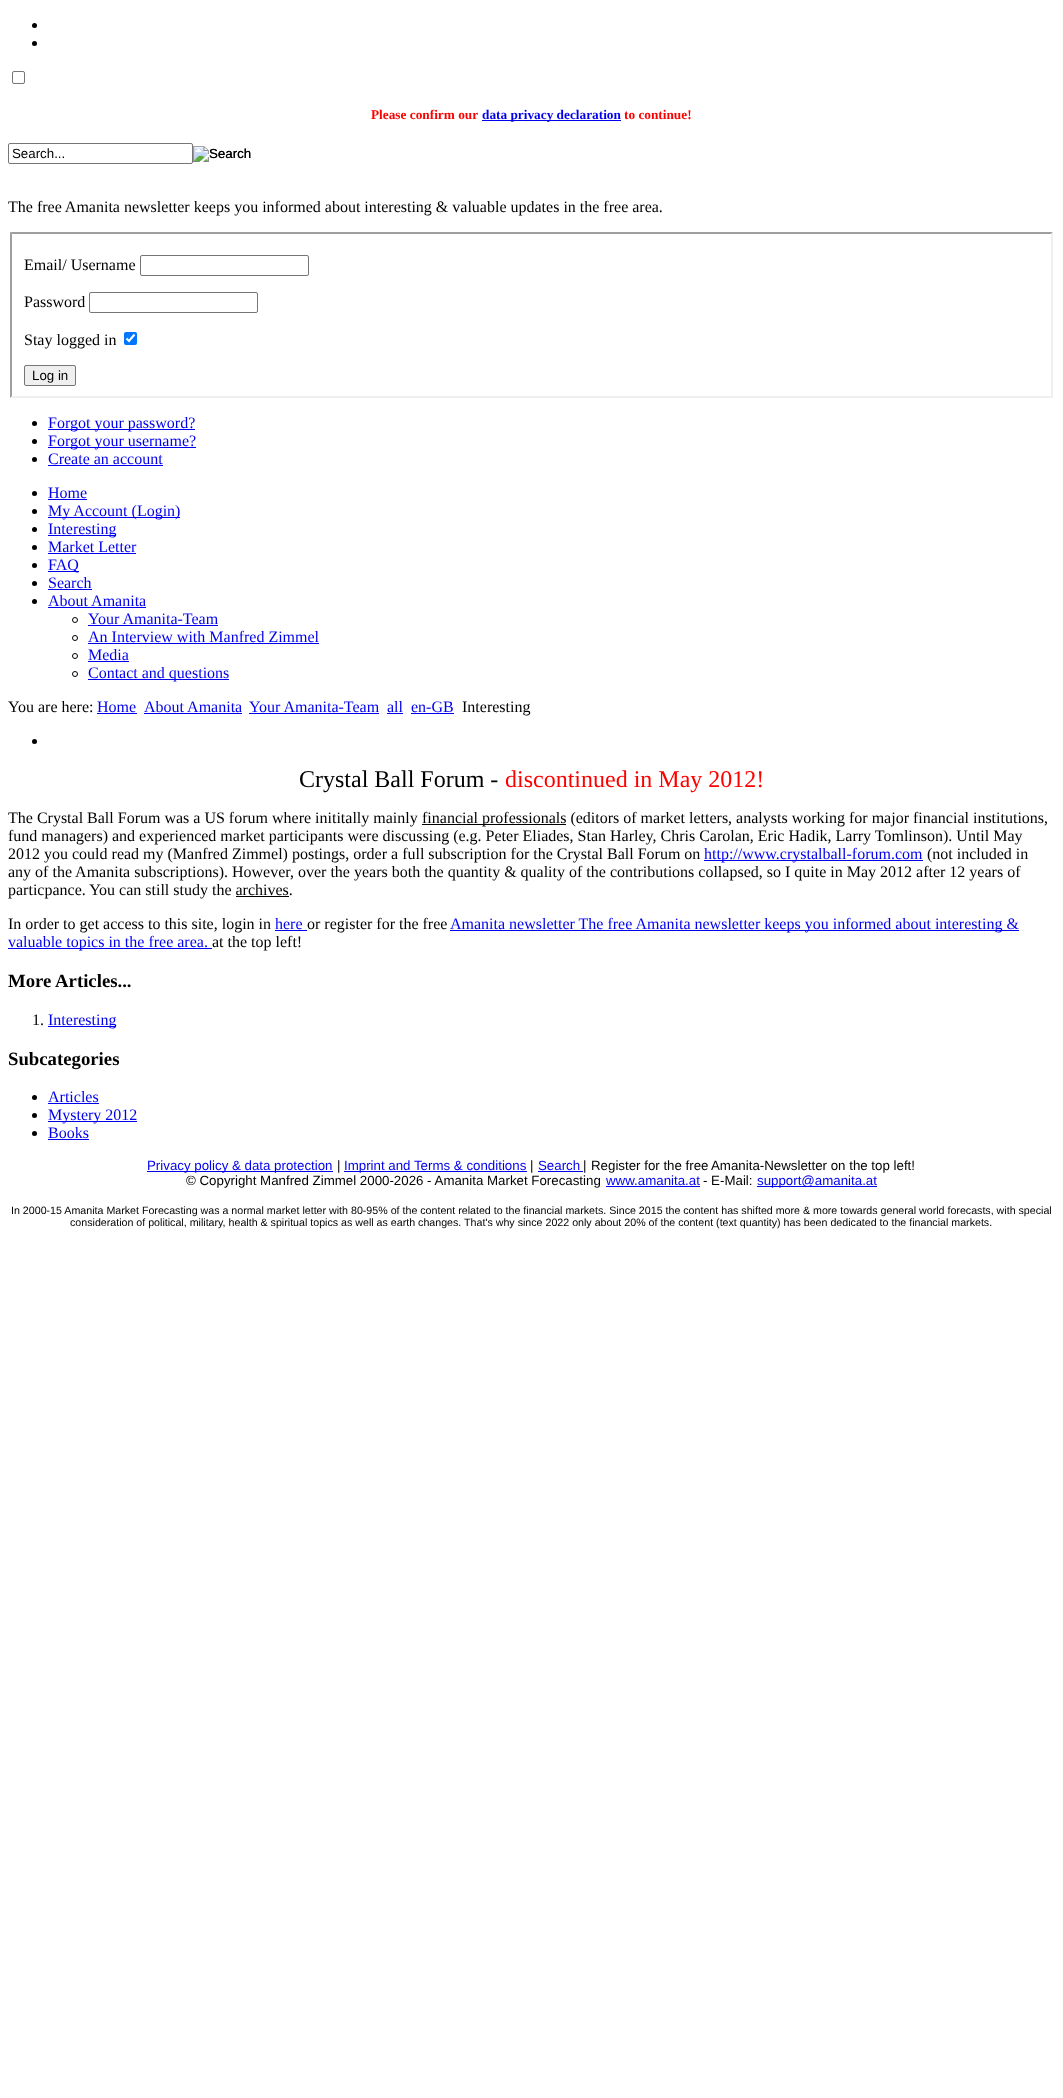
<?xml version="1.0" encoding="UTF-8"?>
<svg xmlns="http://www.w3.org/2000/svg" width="1063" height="2098">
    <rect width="100%" height="100%" fill="#FFFFFF"/>
    <circle cx="34.5" cy="25.5" r="2.5" fill="#000000"/>
    <circle cx="34.5" cy="43.5" r="2.5" fill="#000000"/>
    <rect x="12.5" y="71.5" width="12" height="12" rx="1.5" fill="none" stroke="#767676"/>
    <text x="371" y="119" font-family="Liberation Serif" font-size="13.3" font-weight="700" fill="#FF0000">Please confirm our</text>
    <rect x="482" y="120" width="139" height="1" fill="#0000EE"/>
    <text x="482" y="119" font-family="Liberation Serif" font-size="13.3" font-weight="700" fill="#0000EE">data privacy declaration</text>
    <text x="624" y="119" font-family="Liberation Serif" font-size="13.3" font-weight="700" fill="#FF0000">to continue!</text>
    <rect x="8.5" y="143.5" width="184" height="20" rx="1.5" fill="none" stroke="#767676"/>
    <text x="12" y="158" font-family="Liberation Sans" font-size="13.3" fill="#000000">Search...</text>
    <image x="193" y="146" width="58" height="16" href="img_01.png"/>
    <text x="209" y="158" font-family="Liberation Sans" font-size="13.3" fill="#000000">Search</text>
    <text x="8" y="212" font-family="Liberation Serif" font-size="16" fill="#000000">The free Amanita newsletter keeps you informed about interesting &amp; valuable updates in the free area.</text>
    <path d="M 10 232 H 1053 L 1051 234 H 12 Z" fill="#9F9F9F"/>
    <path d="M 1053 232 V 398 L 1051 396 V 234 Z" fill="#EFEFEF"/>
    <path d="M 1053 398 H 10 L 12 396 H 1051 Z" fill="#EFEFEF"/>
    <path d="M 10 398 V 232 L 12 234 V 396 Z" fill="#9F9F9F"/>
    <text x="24" y="270" font-family="Liberation Serif" font-size="16" fill="#000000">Email/ Username</text>
    <rect x="140.5" y="255.5" width="168" height="20" rx="1.5" fill="none" stroke="#767676"/>
    <text x="24" y="307" font-family="Liberation Serif" font-size="16" fill="#000000">Password</text>
    <rect x="89.5" y="292.5" width="168" height="20" rx="1.5" fill="none" stroke="#767676"/>
    <text x="24" y="345" font-family="Liberation Serif" font-size="16" fill="#000000">Stay logged in</text>
    <rect x="124" y="332" width="13" height="13" rx="2" fill="#0075FF"/>
    <path d="M 126.5 338.5 L 129 341 L 134.5 334.5" fill="none" stroke="#FFFFFF" stroke-width="2.1"/>
    <rect x="24.5" y="365.5" width="51" height="20" rx="1.5" fill="#EFEFEF" stroke="#767676"/>
    <text x="32" y="380" font-family="Liberation Sans" font-size="13.3" fill="#000000">Log in</text>
    <circle cx="34.5" cy="423.5" r="2.5" fill="#000000"/>
    <rect x="48" y="429" width="147" height="1" fill="#0000EE"/>
    <text x="48" y="428" font-family="Liberation Serif" font-size="16" fill="#0000EE">Forgot your password?</text>
    <circle cx="34.5" cy="441.5" r="2.5" fill="#000000"/>
    <rect x="48" y="447" width="148" height="1" fill="#0000EE"/>
    <text x="48" y="446" font-family="Liberation Serif" font-size="16" fill="#0000EE">Forgot your username?</text>
    <circle cx="34.5" cy="459.5" r="2.5" fill="#000000"/>
    <text x="48" y="464" font-family="Liberation Serif" font-size="16" fill="#0000EE">Create an account</text>
    <rect x="48" y="465" width="115" height="1" fill="#0000EE"/>
    <circle cx="34.5" cy="493.5" r="2.5" fill="#000000"/>
    <text x="48" y="498" font-family="Liberation Serif" font-size="16" fill="#0000EE">Home</text>
    <rect x="48" y="499" width="39" height="1" fill="#0000EE"/>
    <circle cx="34.5" cy="511.5" r="2.5" fill="#000000"/>
    <rect x="48" y="517" width="132" height="1" fill="#0000EE"/>
    <text x="48" y="516" font-family="Liberation Serif" font-size="16" fill="#0000EE">My Account (Login)</text>
    <circle cx="34.5" cy="529.5" r="2.5" fill="#000000"/>
    <rect x="48" y="535" width="68" height="1" fill="#0000EE"/>
    <text x="48" y="534" font-family="Liberation Serif" font-size="16" fill="#0000EE">Interesting</text>
    <circle cx="34.5" cy="547.5" r="2.5" fill="#000000"/>
    <text x="48" y="552" font-family="Liberation Serif" font-size="16" fill="#0000EE">Market Letter</text>
    <rect x="48" y="553" width="88" height="1" fill="#0000EE"/>
    <circle cx="34.5" cy="565.5" r="2.5" fill="#000000"/>
    <rect x="48" y="571" width="31" height="1" fill="#0000EE"/>
    <text x="48" y="570" font-family="Liberation Serif" font-size="16" fill="#0000EE">FAQ</text>
    <circle cx="34.5" cy="583.5" r="2.5" fill="#000000"/>
    <text x="48" y="588" font-family="Liberation Serif" font-size="16" fill="#0000EE">Search</text>
    <rect x="48" y="589" width="44" height="1" fill="#0000EE"/>
    <circle cx="34.5" cy="601.5" r="2.5" fill="#000000"/>
    <text x="48" y="606" font-family="Liberation Serif" font-size="16" fill="#0000EE">About Amanita</text>
    <rect x="48" y="607" width="98" height="1" fill="#0000EE"/>
    <circle cx="75" cy="620" r="2.5" fill="none" stroke="#000000"/>
    <text x="88" y="624" font-family="Liberation Serif" font-size="16" fill="#0000EE">Your Amanita-Team</text>
    <rect x="88" y="625" width="130" height="1" fill="#0000EE"/>
    <circle cx="75" cy="638" r="2.5" fill="none" stroke="#000000"/>
    <text x="88" y="642" font-family="Liberation Serif" font-size="16" fill="#0000EE">An Interview with Manfred Zimmel</text>
    <rect x="88" y="643" width="231" height="1" fill="#0000EE"/>
    <circle cx="75" cy="656" r="2.5" fill="none" stroke="#000000"/>
    <text x="88" y="660" font-family="Liberation Serif" font-size="16" fill="#0000EE">Media</text>
    <rect x="88" y="661" width="41" height="1" fill="#0000EE"/>
    <circle cx="75" cy="674" r="2.5" fill="none" stroke="#000000"/>
    <rect x="88" y="679" width="141" height="1" fill="#0000EE"/>
    <text x="88" y="678" font-family="Liberation Serif" font-size="16" fill="#0000EE">Contact and questions</text>
    <text x="8" y="712" font-family="Liberation Serif" font-size="16" fill="#000000">You are here:</text>
    <text x="97" y="712" font-family="Liberation Serif" font-size="16" fill="#0000EE">Home</text>
    <rect x="97" y="713" width="40" height="1" fill="#0000EE"/>
    <text x="144" y="712" font-family="Liberation Serif" font-size="16" fill="#0000EE">About Amanita</text>
    <rect x="144" y="713" width="98" height="1" fill="#0000EE"/>
    <text x="249" y="712" font-family="Liberation Serif" font-size="16" fill="#0000EE">Your Amanita-Team</text>
    <rect x="249" y="713" width="130" height="1" fill="#0000EE"/>
    <text x="387" y="712" font-family="Liberation Serif" font-size="16" fill="#0000EE">all</text>
    <rect x="387" y="713" width="16" height="1" fill="#0000EE"/>
    <text x="411" y="712" font-family="Liberation Serif" font-size="16" fill="#0000EE">en-GB</text>
    <rect x="411" y="713" width="43" height="1" fill="#0000EE"/>
    <text x="462" y="712" font-family="Liberation Serif" font-size="16" fill="#000000">Interesting</text>
    <circle cx="34.5" cy="741.5" r="2.5" fill="#000000"/>
    <text x="299" y="787" font-family="Liberation Serif" font-size="24" fill="#000000">Crystal Ball Forum -</text>
    <text x="505" y="787" font-family="Liberation Serif" font-size="24" fill="#FF0000">discontinued in May 2012!</text>
    <text x="8" y="823" font-family="Liberation Serif" font-size="16" fill="#000000">The Crystal Ball Forum was a US forum where inititally mainly</text>
    <rect x="422" y="824" width="144" height="1" fill="#000000"/>
    <text x="422" y="823" font-family="Liberation Serif" font-size="16" fill="#000000">financial professionals (editors of market letters, analysts working for major financial institutions,</text>
    <text font-family="Liberation Serif" font-size="16" fill="#000000">
        <tspan x="8" y="841">fund managers) and experienced market participants were discussing (e.g. Peter Eliades, Stan Harley, Chris Carolan, Eric Hadik, Larry Tomlinson). Until May</tspan>
        <tspan x="8" y="859">2012 you could read my (Manfred Zimmel) postings, order a full subscription for the Crystal Ball Forum on</tspan>
    </text>
    <rect x="704" y="860" width="219" height="1" fill="#0000EE"/>
    <text x="704" y="859" font-family="Liberation Serif" font-size="16" fill="#0000EE">http://www.crystalball-forum.com</text>
    <text x="927" y="859" font-family="Liberation Serif" font-size="16" fill="#000000">(not included in</text>
    <text font-family="Liberation Serif" font-size="16" fill="#000000">
        <tspan x="8" y="877">any of the Amanita subscriptions). However, over the years both the quantity &amp; quality of the contributions collapsed, so I quite in May 2012 after 12 years of</tspan>
        <tspan x="8" y="895">particpance. You can still study the archives.</tspan>
    </text>
    <rect x="236" y="896" width="53" height="1" fill="#000000"/>
    <text x="8" y="929" font-family="Liberation Serif" font-size="16" fill="#000000">In order to get access to this site, login in</text>
    <text x="275" y="929" font-family="Liberation Serif" font-size="16" fill="#0000EE">here</text>
    <rect x="275" y="930" width="32" height="1" fill="#0000EE"/>
    <text x="307" y="929" font-family="Liberation Serif" font-size="16" fill="#000000">or register for the free</text>
    <rect x="450" y="930" width="569" height="1" fill="#0000EE"/>
    <text x="450" y="929" font-family="Liberation Serif" font-size="16" fill="#0000EE">Amanita newsletter The free Amanita newsletter keeps you informed about interesting &amp;</text>
    <rect x="8" y="948" width="204" height="1" fill="#0000EE"/>
    <text x="8" y="947" font-family="Liberation Serif" font-size="16" fill="#0000EE">valuable topics in the free area.</text>
    <text x="212" y="947" font-family="Liberation Serif" font-size="16" fill="#000000">at the top left!</text>
    <text x="8" y="987" font-family="Liberation Serif" font-size="18.75" font-weight="700" fill="#000000">More Articles...</text>
    <text x="32" y="1025" font-family="Liberation Serif" font-size="16" fill="#000000">1.</text>
    <rect x="48" y="1026" width="68" height="1" fill="#0000EE"/>
    <text x="48" y="1025" font-family="Liberation Serif" font-size="16" fill="#0000EE">Interesting</text>
    <text x="8" y="1065" font-family="Liberation Serif" font-size="18.75" font-weight="700" fill="#000000">Subcategories</text>
    <circle cx="34.5" cy="1097.5" r="2.5" fill="#000000"/>
    <text x="48" y="1102" font-family="Liberation Serif" font-size="16" fill="#0000EE">Articles</text>
    <rect x="48" y="1103" width="51" height="1" fill="#0000EE"/>
    <circle cx="34.5" cy="1115.5" r="2.5" fill="#000000"/>
    <rect x="48" y="1121" width="89" height="1" fill="#0000EE"/>
    <text x="48" y="1120" font-family="Liberation Serif" font-size="16" fill="#0000EE">Mystery 2012</text>
    <circle cx="34.5" cy="1133.5" r="2.5" fill="#000000"/>
    <text x="48" y="1138" font-family="Liberation Serif" font-size="16" fill="#0000EE">Books</text>
    <rect x="48" y="1139" width="41" height="1" fill="#0000EE"/>
    <rect x="147" y="1171" width="186" height="1" fill="#0000EE"/>
    <text x="147" y="1170" font-family="Liberation Sans" font-size="13.3" fill="#0000EE">Privacy policy &amp; data protection</text>
    <text x="337" y="1170" font-family="Liberation Sans" font-size="13.3" fill="#000000">|</text>
    <rect x="344" y="1171" width="183" height="1" fill="#0000EE"/>
    <text x="344" y="1170" font-family="Liberation Sans" font-size="13.3" fill="#0000EE">Imprint and Terms &amp; conditions</text>
    <text x="530" y="1170" font-family="Liberation Sans" font-size="13.3" fill="#000000">|</text>
    <text x="538" y="1170" font-family="Liberation Sans" font-size="13.3" fill="#0000EE">Search</text>
    <text x="583" y="1170" font-family="Liberation Sans" font-size="13.3" fill="#000000">|</text>
    <rect x="538" y="1171" width="45" height="1" fill="#0000EE"/>
    <text x="591" y="1170" font-family="Liberation Sans" font-size="13.3" fill="#000000">Register for the free</text>
    <text x="711" y="1170" font-family="Liberation Sans" font-size="13.3" fill="#000000">Amanita-Newsletter on the top left!</text>
    <text x="186" y="1185" font-family="Liberation Sans" font-size="13.3" fill="#000000">© Copyright Manfred Zimmel 2000-2026 - Amanita Market Forecasting</text>
    <text x="606" y="1185" font-family="Liberation Sans" font-size="13.3" fill="#0000EE">www.amanita.at</text>
    <rect x="606" y="1186" width="94" height="1" fill="#0000EE"/>
    <text x="703" y="1185" font-family="Liberation Sans" font-size="13.3" fill="#000000">- E-Mail:</text>
    <rect x="757" y="1186" width="120" height="1" fill="#0000EE"/>
    <text x="757" y="1185" font-family="Liberation Sans" font-size="13.3" fill="#0000EE">support@amanita.at</text>
    <text x="11" y="1214" font-family="Liberation Sans" font-size="10.67" fill="#000000">In 2000-15 Amanita Market Forecasting was a normal market letter with 80-95% of the content related to the financial markets. Since 2015 the content has shifted more &amp; more towards general world forecasts, with special</text>
    <text x="70" y="1226" font-family="Liberation Sans" font-size="10.67" fill="#000000">consideration of political, military, health &amp; spiritual topics as well as earth changes. That's why since 2022 only about 20% of the content (text quantity) has been dedicated to the financial markets.</text>
</svg>
